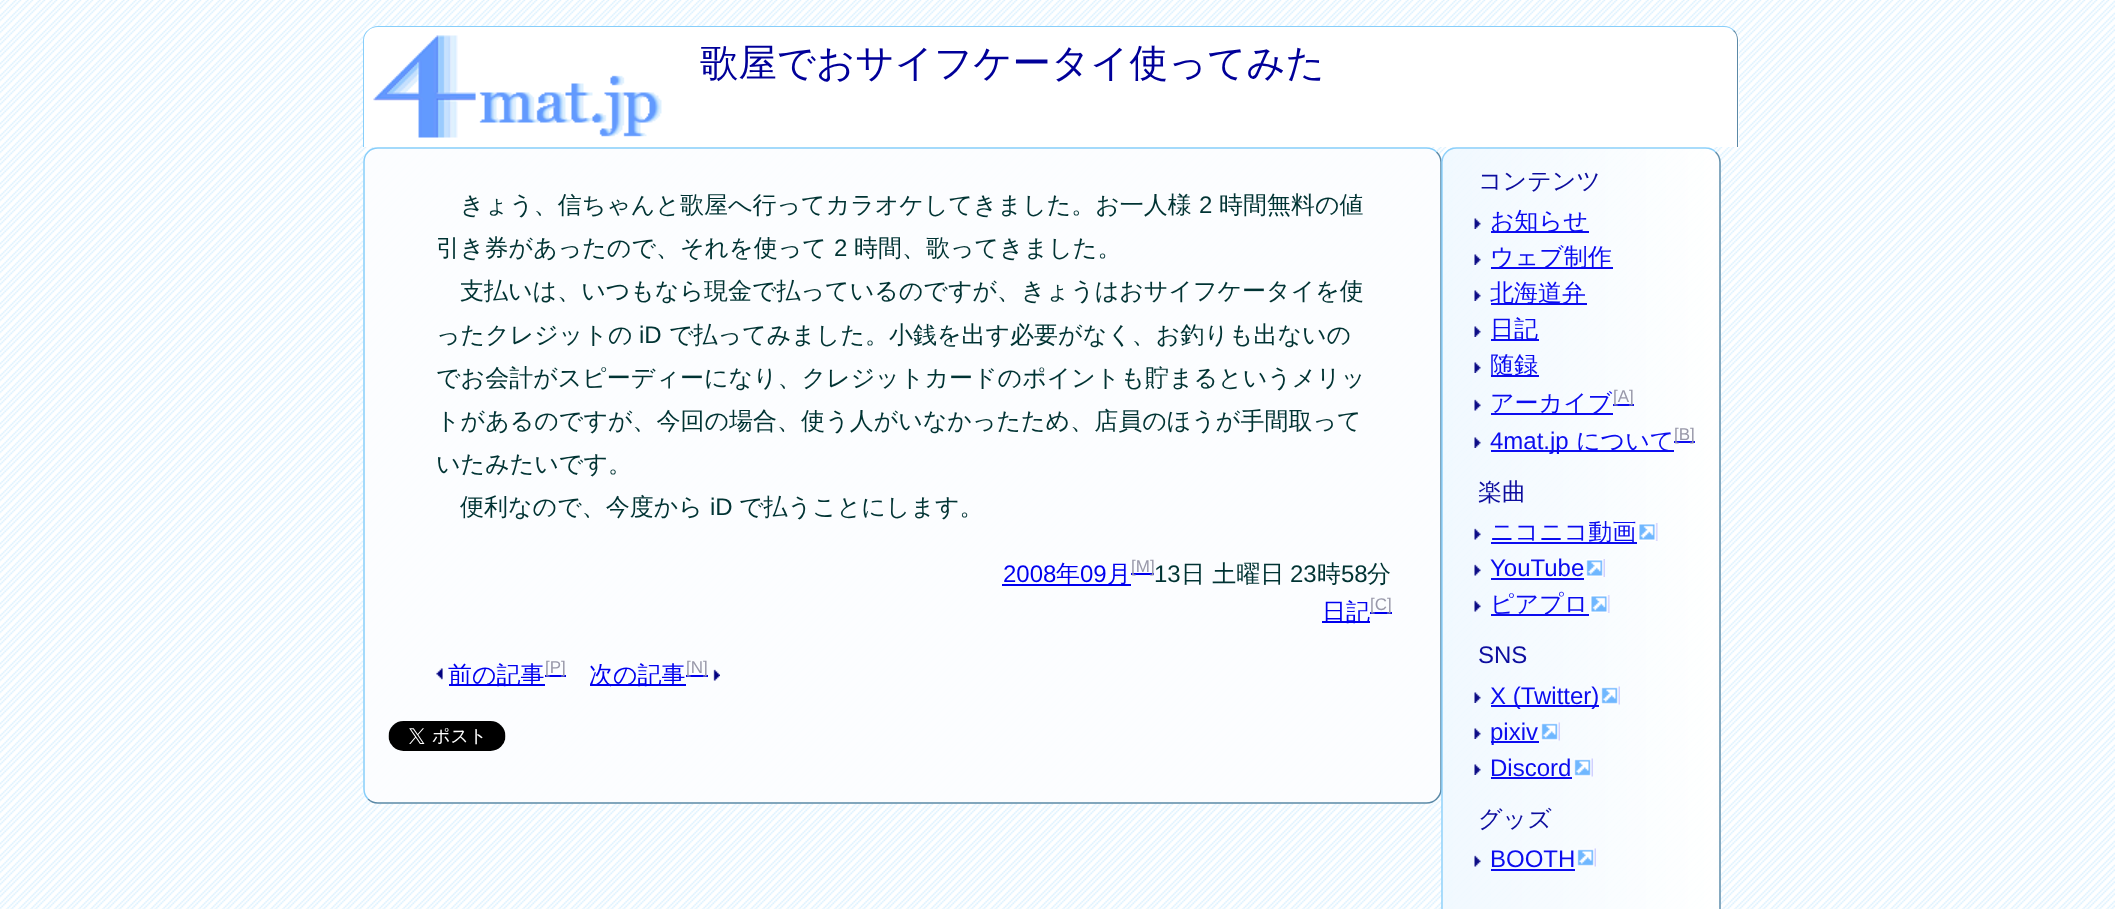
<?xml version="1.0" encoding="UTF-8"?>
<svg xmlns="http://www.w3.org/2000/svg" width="2115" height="909">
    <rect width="100%" height="100%" fill="#FFFFFF"/>
    <image x="0" y="0" width="2115" height="909" href="img_01.png"/>
    <path d="M 378 26 H 1724 C 1732.5 26 1739 32.5 1739 41 V 147 H 363 V 41 C 363 32.5 369.5 26 378 26 Z" fill="#FFFFFF"/>
    <image x="373" y="35" width="289" height="103" href="img_02.png"/>
    <path d="M 378 26 H 1724 C 1728 26 1732 28 1734 30 L 1733 31 C 1731 28 1728 27 1724 27 H 378 C 374 27 371 28 368 31 V 30 C 370 28 374 26 378 26 Z" fill="#87CEFA"/>
    <path d="M 1737 147 V 40 C 1737 36 1736 33 1733 31 L 1734 30 C 1736 32 1738 36 1738 40 V 147 Z" fill="#5A89A7"/>
    <path d="M 363 147 H 364 V 40 C 364 36 366 33 368 31 V 30 C 365 32 363 36 363 40 Z" fill="#87CEFA"/>
    <text x="700" y="76" font-family="WenQuanYi Zen Hei" font-size="38.4" font-weight="500" fill="#000099">歌屋でおサイフケータイ使ってみた</text>
    <rect x="363" y="147" width="1079" height="657" rx="15" fill="#FCFDFF" fill-opacity="0.95"/>
    <path d="M 1436.5 152 C 1439 154.5 1441 158 1441 162 V 789 C 1441 793 1439 796.5 1436.5 799 C 1434 801.5 1430.5 803 1426.5 803 H 378 C 374 803 370.5 801.5 368 799" fill="none" stroke="#5A89A7" stroke-width="1.5"/>
    <path d="M 368 799 C 365.5 796.5 364 793 364 789 V 162 C 364 158 365.5 154.5 368 152 C 370.5 149.5 374 148 378 148 H 1426.5 C 1430.5 148 1434 149.5 1436.5 152" fill="none" stroke="#87CEFA" stroke-width="1.5"/>
    <text x="460" y="213" font-family="WenQuanYi Zen Hei" font-size="24" font-weight="500" fill="#003333">きょう、信ちゃんと歌屋へ行ってカラオケしてきました。お一人様</text>
    <text x="1199" y="213" font-family="Liberation Sans" font-size="24" fill="#003333">2</text>
    <text x="1219" y="213" font-family="WenQuanYi Zen Hei" font-size="24" font-weight="500" fill="#003333">時間無料の値</text>
    <text x="436" y="256" font-family="WenQuanYi Zen Hei" font-size="24" font-weight="500" fill="#003333">引き券があったので、それを使って</text>
    <text x="834" y="256" font-family="Liberation Sans" font-size="24" fill="#003333">2</text>
    <text x="854" y="256" font-family="WenQuanYi Zen Hei" font-size="24" font-weight="500" fill="#003333">時間、歌ってきました。</text>
    <text x="460" y="299" font-family="WenQuanYi Zen Hei" font-size="24" font-weight="500" fill="#003333">支払いは、いつもなら現金で払っているのですが、きょうはおサイフケータイを使</text>
    <text x="436" y="343" font-family="WenQuanYi Zen Hei" font-size="24" font-weight="500" fill="#003333">ったクレジットの</text>
    <text x="639" y="343" font-family="Liberation Sans" font-size="24" fill="#003333">iD</text>
    <text x="669" y="343" font-family="WenQuanYi Zen Hei" font-size="24" font-weight="500" fill="#003333">で払ってみました。小銭を出す必要がなく、お釣りも出ないの</text>
    <text font-family="WenQuanYi Zen Hei" font-size="24" font-weight="500" fill="#003333">
        <tspan x="436" y="386">でお会計がスピーディーになり、クレジットカードのポイントも貯まるというメリッ</tspan>
        <tspan x="436" y="429">トがあるのですが、今回の場合、使う人がいなかったため、店員のほうが手間取って</tspan>
        <tspan x="436" y="472">いたみたいです。</tspan>
    </text>
    <text x="460" y="515" font-family="WenQuanYi Zen Hei" font-size="24" font-weight="500" fill="#003333">便利なので、今度から</text>
    <text x="710" y="515" font-family="Liberation Sans" font-size="24" fill="#003333">iD</text>
    <text x="739" y="515" font-family="WenQuanYi Zen Hei" font-size="24" font-weight="500" fill="#003333">で払うことにします。</text>
    <text x="1003" y="582" font-family="Liberation Sans" font-size="24" fill="#0000EE">2008</text>
    <rect x="1002" y="584" width="129" height="2" fill="#0000EE"/>
    <text x="1056" y="582" font-family="WenQuanYi Zen Hei" font-size="24" font-weight="500" fill="#0000EE">年</text>
    <text x="1080" y="582" font-family="Liberation Sans" font-size="24" fill="#0000EE">09</text>
    <text x="1107" y="582" font-family="WenQuanYi Zen Hei" font-size="24" font-weight="500" fill="#0000EE">月</text>
    <rect x="1131" y="573" width="23" height="2" fill="#0000EE"/>
    <text x="1131" y="572" font-family="Liberation Sans" font-size="17" fill="#9999AA">[M]</text>
    <text x="1154" y="582" font-family="Liberation Sans" font-size="24" fill="#003333">13</text>
    <text x="1181" y="582" font-family="WenQuanYi Zen Hei" font-size="24" font-weight="500" fill="#003333">日 土曜日</text>
    <text x="1290" y="582" font-family="Liberation Sans" font-size="24" fill="#003333">23</text>
    <text x="1317" y="582" font-family="WenQuanYi Zen Hei" font-size="24" font-weight="500" fill="#003333">時</text>
    <text x="1341" y="582" font-family="Liberation Sans" font-size="24" fill="#003333">58</text>
    <text x="1367" y="582" font-family="WenQuanYi Zen Hei" font-size="24" font-weight="500" fill="#003333">分</text>
    <rect x="1322" y="621" width="48" height="2" fill="#0000EE"/>
    <text x="1322" y="620" font-family="WenQuanYi Zen Hei" font-size="24" font-weight="500" fill="#0000EE">日記</text>
    <rect x="1370" y="612" width="22" height="2" fill="#0000EE"/>
    <text x="1370" y="610" font-family="Liberation Sans" font-size="17" fill="#9999AA">[C]</text>
    <image x="436" y="668" width="7" height="12" href="img_03.png"/>
    <rect x="449" y="684" width="96" height="2" fill="#0000EE"/>
    <text x="448" y="683" font-family="WenQuanYi Zen Hei" font-size="24" font-weight="500" fill="#0000EE">前の記事</text>
    <rect x="545" y="675" width="21" height="2" fill="#0000EE"/>
    <text x="545" y="673" font-family="Liberation Sans" font-size="17" fill="#9999AA">[P]</text>
    <rect x="590" y="684" width="96" height="2" fill="#0000EE"/>
    <text x="589" y="683" font-family="WenQuanYi Zen Hei" font-size="24" font-weight="500" fill="#0000EE">次の記事</text>
    <rect x="686" y="675" width="22" height="2" fill="#0000EE"/>
    <text x="686" y="673" font-family="Liberation Sans" font-size="17" fill="#9999AA">[N]</text>
    <image x="713" y="669" width="7" height="12" href="img_04.png"/>
    <image x="388" y="721" width="118" height="30" href="img_05.png"/>
    <path d="M 1715.5 152 C 1718 154.5 1720 158 1720 162 V 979.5 C 1720 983.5 1718 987 1715.5 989.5 C 1713 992 1709.5 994 1705.5 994 H 1456.5 C 1452.5 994 1449 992 1446.5 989.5" fill="none" stroke="#5A89A7" stroke-opacity="0.95" stroke-width="1.5"/>
    <path d="M 1446.5 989.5 C 1444 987 1442 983.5 1442 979.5 V 162 C 1442 158 1444 154.5 1446.5 152 C 1449 149.5 1452.5 148 1456.5 148 H 1705.5 C 1709.5 148 1713 149.5 1715.5 152" fill="none" stroke="#87CEFA" stroke-opacity="0.95" stroke-width="1.5"/>
    <text x="1478" y="189" font-family="WenQuanYi Zen Hei" font-size="24" font-weight="500" fill="#0C0D9E">コンテンツ</text>
    <image x="1474" y="218" width="7" height="11" href="img_06.png"/>
    <rect x="1491" y="231" width="98" height="2" fill="#0000EE" fill-opacity="0.95"/>
    <text x="1490" y="229" font-family="WenQuanYi Zen Hei" font-size="24" font-weight="500" fill="#0B0CEF">お知らせ</text>
    <image x="1474" y="254" width="7" height="11" href="img_07.png"/>
    <rect x="1491" y="267" width="122" height="2" fill="#0000EE" fill-opacity="0.95"/>
    <text x="1490" y="265" font-family="WenQuanYi Zen Hei" font-size="24" font-weight="500" fill="#0B0CEF">ウェブ制作</text>
    <image x="1474" y="290" width="7" height="11" href="img_07.png"/>
    <rect x="1491" y="303" width="96" height="2" fill="#0000EE" fill-opacity="0.95"/>
    <text x="1490" y="301" font-family="WenQuanYi Zen Hei" font-size="24" font-weight="500" fill="#0B0CEF">北海道弁</text>
    <image x="1474" y="326" width="7" height="11" href="img_07.png"/>
    <rect x="1491" y="339" width="48" height="2" fill="#0000EE" fill-opacity="0.95"/>
    <text x="1490" y="337" font-family="WenQuanYi Zen Hei" font-size="24" font-weight="500" fill="#0B0CEF">日記</text>
    <image x="1474" y="362" width="7" height="11" href="img_07.png"/>
    <rect x="1491" y="375" width="48" height="2" fill="#0000EE" fill-opacity="0.95"/>
    <text x="1490" y="373" font-family="WenQuanYi Zen Hei" font-size="24" font-weight="500" fill="#0B0CEF">随録</text>
    <image x="1474" y="399" width="7" height="12" href="img_08.png"/>
    <rect x="1491" y="413" width="122" height="2" fill="#0000EE" fill-opacity="0.95"/>
    <text x="1490" y="411" font-family="WenQuanYi Zen Hei" font-size="24" font-weight="500" fill="#0B0CEF">アーカイブ</text>
    <rect x="1613" y="404" width="21" height="2" fill="#0000EE" fill-opacity="0.95"/>
    <text x="1613" y="402" font-family="Liberation Sans" font-size="17" fill="#9999AA">[A]</text>
    <image x="1474" y="437" width="7" height="11" href="img_09.png"/>
    <rect x="1491" y="450" width="183" height="2" fill="#0000EE" fill-opacity="0.95"/>
    <text x="1490" y="449" font-family="Liberation Sans" font-size="24" fill="#0B0CEF">4mat.jp</text>
    <text x="1576" y="449" font-family="WenQuanYi Zen Hei" font-size="24" font-weight="500" fill="#0B0CEF">について</text>
    <rect x="1674" y="441" width="21" height="2" fill="#0000EE" fill-opacity="0.95"/>
    <text x="1674" y="440" font-family="Liberation Sans" font-size="17" fill="#9999AA">[B]</text>
    <text x="1478" y="500" font-family="WenQuanYi Zen Hei" font-size="24" font-weight="500" fill="#0C0D9E">楽曲</text>
    <image x="1474" y="528" width="7" height="12" href="img_10.png"/>
    <rect x="1491" y="542" width="146" height="2" fill="#0000EE" fill-opacity="0.95"/>
    <text x="1490" y="540" font-family="WenQuanYi Zen Hei" font-size="24" font-weight="500" fill="#0B0CEF">ニコニコ動画</text>
    <image x="1638" y="523" width="20" height="18" href="img_11.png"/>
    <image x="1474" y="564" width="7" height="12" href="img_10.png"/>
    <text x="1490" y="576" font-family="Liberation Sans" font-size="24" fill="#0B0CEF">YouTube</text>
    <rect x="1491" y="578" width="93" height="2" fill="#0000EE" fill-opacity="0.95"/>
    <image x="1586" y="559" width="19" height="18" href="img_12.png"/>
    <image x="1474" y="600" width="7" height="12" href="img_10.png"/>
    <rect x="1491" y="614" width="98" height="2" fill="#0000EE" fill-opacity="0.95"/>
    <text x="1490" y="612" font-family="WenQuanYi Zen Hei" font-size="24" font-weight="500" fill="#0B0CEF">ピアプロ</text>
    <image x="1590" y="595" width="20" height="18" href="img_13.png"/>
    <text x="1478" y="663" font-family="Liberation Sans" font-size="24" fill="#0C0D9E">SNS</text>
    <image x="1474" y="692" width="7" height="11" href="img_14.png"/>
    <rect x="1491" y="705" width="108" height="2" fill="#0000EE" fill-opacity="0.95"/>
    <text x="1490" y="704" font-family="Liberation Sans" font-size="24" fill="#0B0CEF">X (Twitter)</text>
    <image x="1601" y="686" width="19" height="19" href="img_15.png"/>
    <image x="1474" y="728" width="7" height="11" href="img_14.png"/>
    <rect x="1491" y="741" width="48" height="2" fill="#0000EE" fill-opacity="0.95"/>
    <text x="1490" y="740" font-family="Liberation Sans" font-size="24" fill="#0B0CEF">pixiv</text>
    <image x="1540" y="722" width="20" height="19" href="img_16.png"/>
    <image x="1474" y="764" width="7" height="11" href="img_14.png"/>
    <text x="1490" y="776" font-family="Liberation Sans" font-size="24" fill="#0B0CEF">Discord</text>
    <rect x="1491" y="777" width="81" height="2" fill="#0000EE" fill-opacity="0.95"/>
    <image x="1574" y="758" width="19" height="19" href="img_17.png"/>
    <text x="1478" y="827" font-family="WenQuanYi Zen Hei" font-size="24" font-weight="500" fill="#0C0D9E">グッズ</text>
    <image x="1474" y="855" width="7" height="12" href="img_08.png"/>
    <text x="1490" y="867" font-family="Liberation Sans" font-size="24" fill="#0B0CEF">BOOTH</text>
    <rect x="1491" y="869" width="84" height="2" fill="#0000EE" fill-opacity="0.95"/>
    <image x="1577" y="848" width="19" height="19" href="img_18.png"/>
</svg>
